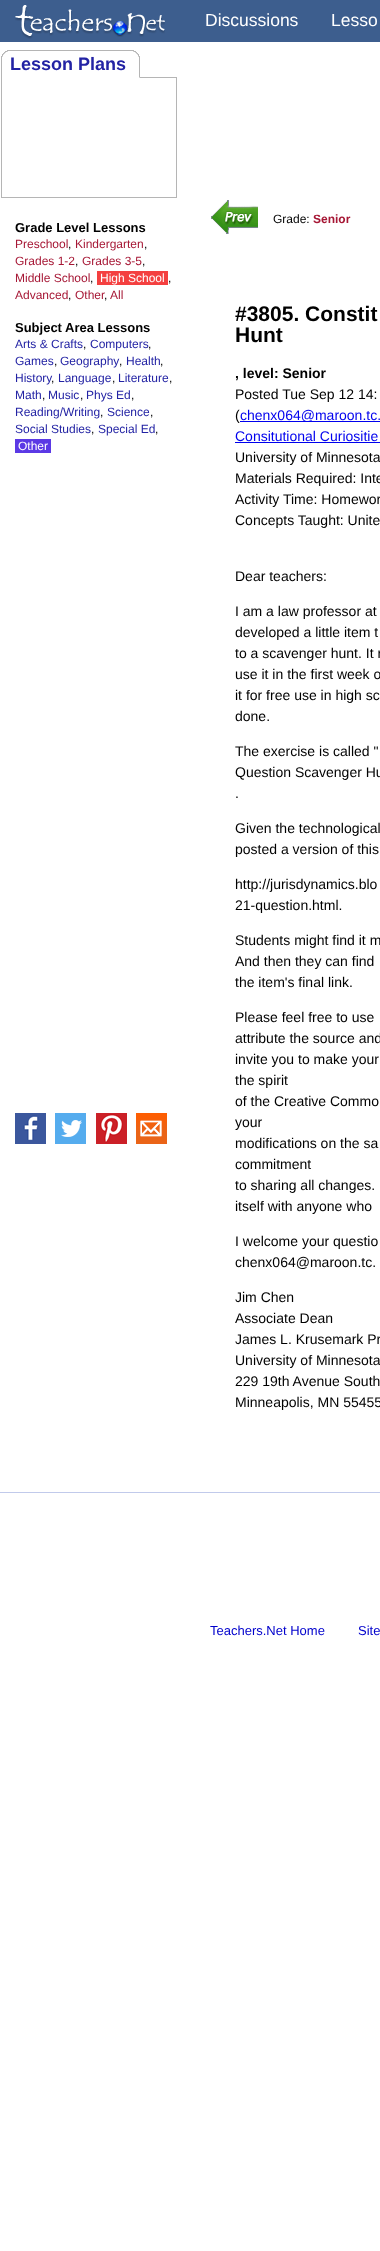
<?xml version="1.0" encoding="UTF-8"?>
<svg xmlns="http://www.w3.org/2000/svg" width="380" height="2251">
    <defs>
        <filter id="blur1" x="-50%" y="-200%" width="200%" height="500%"><feGaussianBlur stdDeviation="0.5"/></filter>
    </defs>
    <rect width="100%" height="100%" fill="#FFFFFF"/>
    <rect x="0" y="0" width="380" height="42" fill="#3D5E8E"/>
    <image x="15" y="5" width="150" height="34" href="img_01.png"/>
    <text x="205" y="26" font-family="Liberation Sans" font-size="17.5" fill="#FFFFFF">Discussions</text>
    <text x="331" y="26" font-family="Liberation Sans" font-size="17.5" fill="#FFFFFF">Lesso</text>
    <image x="1" y="50" width="176" height="148" href="img_02.png"/>
    <text x="10" y="70" font-family="Liberation Sans" font-size="18" font-weight="700" fill="#2323A4">Lesson Plans</text>
    <text x="15" y="232" font-family="Liberation Sans" font-size="13" font-weight="700" fill="#000000">Grade Level Lessons</text>
    <text x="15" y="248" font-family="Liberation Sans" font-size="12" fill="#A61735">Preschool</text>
    <text x="68" y="248" font-family="Liberation Sans" font-size="12" fill="#000000">,</text>
    <text x="75" y="248" font-family="Liberation Sans" font-size="12" fill="#A61735">Kindergarten</text>
    <text x="144" y="248" font-family="Liberation Sans" font-size="12" fill="#000000">,</text>
    <text x="15" y="265" font-family="Liberation Sans" font-size="12" fill="#A61735">Grades 1-2</text>
    <text x="75" y="265" font-family="Liberation Sans" font-size="12" fill="#000000">,</text>
    <text x="82" y="265" font-family="Liberation Sans" font-size="12" fill="#A61735">Grades 3-5</text>
    <text x="142" y="265" font-family="Liberation Sans" font-size="12" fill="#000000">,</text>
    <text x="15" y="282" font-family="Liberation Sans" font-size="12" fill="#A61735">Middle School</text>
    <text x="90" y="282" font-family="Liberation Sans" font-size="12" fill="#000000">,</text>
    <rect x="97" y="271" width="71" height="14" fill="#F44040"/>
    <text x="100" y="282" font-family="Liberation Sans" font-size="12" fill="#FFFFFF">High School</text>
    <text x="168" y="282" font-family="Liberation Sans" font-size="12" fill="#000000">,</text>
    <text x="15" y="299" font-family="Liberation Sans" font-size="12" fill="#A61735">Advanced</text>
    <text x="68" y="299" font-family="Liberation Sans" font-size="12" fill="#000000">,</text>
    <text x="75" y="299" font-family="Liberation Sans" font-size="12" fill="#A61735">Other</text>
    <text x="104" y="299" font-family="Liberation Sans" font-size="12" fill="#000000">,</text>
    <text x="110" y="299" font-family="Liberation Sans" font-size="12" fill="#A61735">All</text>
    <text x="15" y="332" font-family="Liberation Sans" font-size="13" font-weight="700" fill="#000000">Subject Area Lessons</text>
    <text x="15" y="348" font-family="Liberation Sans" font-size="12" fill="#2323A4">Arts &amp; Crafts</text>
    <text x="83" y="348" font-family="Liberation Sans" font-size="12" fill="#000000">,</text>
    <text x="90" y="348" font-family="Liberation Sans" font-size="12" fill="#2323A4">Computers</text>
    <text x="148" y="348" font-family="Liberation Sans" font-size="12" fill="#000000">,</text>
    <text x="15" y="365" font-family="Liberation Sans" font-size="12" fill="#2323A4">Games</text>
    <text x="54" y="365" font-family="Liberation Sans" font-size="12" fill="#000000">,</text>
    <text x="60" y="365" font-family="Liberation Sans" font-size="12" fill="#2323A4">Geography</text>
    <text x="119" y="365" font-family="Liberation Sans" font-size="12" fill="#000000">,</text>
    <text x="126" y="365" font-family="Liberation Sans" font-size="12" fill="#2323A4">Health</text>
    <text x="160" y="365" font-family="Liberation Sans" font-size="12" fill="#000000">,</text>
    <text x="15" y="382" font-family="Liberation Sans" font-size="12" fill="#2323A4">History</text>
    <text x="58" y="382" font-family="Liberation Sans" font-size="12" fill="#2323A4">Language</text>
    <text x="118" y="382" font-family="Liberation Sans" font-size="12" fill="#2323A4">Literature</text>
    <text x="51" y="382" font-family="Liberation Sans" font-size="12" fill="#000000">,</text>
    <text x="112" y="382" font-family="Liberation Sans" font-size="12" fill="#000000">,</text>
    <text x="169" y="382" font-family="Liberation Sans" font-size="12" fill="#000000">,</text>
    <text x="15" y="399" font-family="Liberation Sans" font-size="12" fill="#2323A4">Math</text>
    <text x="42" y="399" font-family="Liberation Sans" font-size="12" fill="#000000">,</text>
    <text x="48" y="399" font-family="Liberation Sans" font-size="12" fill="#2323A4">Music</text>
    <text x="80" y="399" font-family="Liberation Sans" font-size="12" fill="#000000">,</text>
    <text x="86" y="399" font-family="Liberation Sans" font-size="12" fill="#2323A4">Phys Ed</text>
    <text x="131" y="399" font-family="Liberation Sans" font-size="12" fill="#000000">,</text>
    <text x="15" y="416" font-family="Liberation Sans" font-size="12" fill="#2323A4">Reading/Writing</text>
    <text x="100" y="416" font-family="Liberation Sans" font-size="12" fill="#000000">,</text>
    <text x="107" y="416" font-family="Liberation Sans" font-size="12" fill="#2323A4">Science</text>
    <text x="150" y="416" font-family="Liberation Sans" font-size="12" fill="#000000">,</text>
    <text x="15" y="433" font-family="Liberation Sans" font-size="12" fill="#2323A4">Social Studies</text>
    <text x="91" y="433" font-family="Liberation Sans" font-size="12" fill="#000000">,</text>
    <text x="98" y="433" font-family="Liberation Sans" font-size="12" fill="#2323A4">Special Ed</text>
    <text x="155" y="433" font-family="Liberation Sans" font-size="12" fill="#000000">,</text>
    <rect x="15" y="439" width="36" height="14" fill="#5B39E5"/>
    <text x="18" y="450" font-family="Liberation Sans" font-size="12" fill="#FFFFFF">Other</text>
    <rect x="15" y="1113" width="31" height="31" fill="#BBBBBB" filter="url(#blur1)"/>
    <rect x="55" y="1113" width="31" height="31" fill="#BBBBBB" filter="url(#blur1)"/>
    <rect x="96" y="1113" width="31" height="31" fill="#BBBBBB" filter="url(#blur1)"/>
    <rect x="136" y="1113" width="31" height="31" fill="#BBBBBB" filter="url(#blur1)"/>
    <image x="15" y="1113" width="31" height="31" href="img_03.png"/>
    <image x="55" y="1113" width="31" height="31" href="img_04.png"/>
    <image x="96" y="1113" width="31" height="31" href="img_05.png"/>
    <image x="136" y="1113" width="31" height="31" href="img_06.png"/>
    <image x="211" y="200" width="47" height="34" href="img_07.png"/>
    <text x="273" y="223" font-family="Liberation Sans" font-size="12" fill="#000000">Grade:</text>
    <text x="313" y="223" font-family="Liberation Sans" font-size="12" font-weight="700" fill="#A61735">Senior</text>
    <text font-family="Liberation Sans" font-size="21" font-weight="700" fill="#000000">
        <tspan x="235" y="321">#3805. Constit</tspan>
        <tspan x="235" y="342">Hunt</tspan>
    </text>
    <text x="235" y="378" font-family="Liberation Sans" font-size="14" font-weight="700" fill="#000000">, level: Senior</text>
    <text font-family="Liberation Sans" font-size="14" fill="#000000">
        <tspan x="235" y="399">Posted Tue Sep 12 14:</tspan>
        <tspan x="235" y="420">(</tspan>
    </text>
    <rect x="240" y="421" width="140" height="1" fill="#0000EE"/>
    <text x="240" y="420" font-family="Liberation Sans" font-size="14" fill="#0000EE">chenx064@maroon.tc.</text>
    <text x="235" y="441" font-family="Liberation Sans" font-size="14" fill="#0000EE">Consitutional Curiositie</text>
    <rect x="235" y="442" width="145" height="1" fill="#0000EE"/>
    <text font-family="Liberation Sans" font-size="14" fill="#000000">
        <tspan x="235" y="462">University of Minnesota</tspan>
        <tspan x="235" y="483">Materials Required: Inte</tspan>
        <tspan x="235" y="504">Activity Time: Homewor</tspan>
        <tspan x="235" y="525">Concepts Taught: Unite</tspan>
    </text>
    <text x="235" y="581" font-family="Liberation Sans" font-size="14" fill="#000000">Dear teachers:</text>
    <text font-family="Liberation Sans" font-size="14" fill="#000000">
        <tspan x="235" y="616">I am a law professor at</tspan>
        <tspan x="235" y="637">developed a little item t</tspan>
        <tspan x="235" y="658">to a scavenger hunt. It r</tspan>
        <tspan x="235" y="679">use it in the first week o</tspan>
        <tspan x="235" y="700">it for free use in high sc</tspan>
        <tspan x="235" y="721">done.</tspan>
    </text>
    <text font-family="Liberation Sans" font-size="14" fill="#000000">
        <tspan x="235" y="756">The exercise is called "</tspan>
        <tspan x="235" y="777">Question Scavenger Hu</tspan>
        <tspan x="235" y="798">.</tspan>
    </text>
    <text font-family="Liberation Sans" font-size="14" fill="#000000">
        <tspan x="235" y="833">Given the technological</tspan>
        <tspan x="235" y="854">posted a version of this</tspan>
    </text>
    <text font-family="Liberation Sans" font-size="14" fill="#000000">
        <tspan x="235" y="889">http://jurisdynamics.blo</tspan>
        <tspan x="235" y="910">21-question.html.</tspan>
    </text>
    <text font-family="Liberation Sans" font-size="14" fill="#000000">
        <tspan x="235" y="945">Students might find it m</tspan>
        <tspan x="235" y="966">And then they can find</tspan>
        <tspan x="235" y="987">the item's final link.</tspan>
    </text>
    <text font-family="Liberation Sans" font-size="14" fill="#000000">
        <tspan x="235" y="1022">Please feel free to use</tspan>
        <tspan x="235" y="1043">attribute the source and</tspan>
        <tspan x="235" y="1064">invite you to make your</tspan>
        <tspan x="235" y="1085">the spirit</tspan>
        <tspan x="235" y="1106">of the Creative Commo</tspan>
        <tspan x="235" y="1127">your</tspan>
        <tspan x="235" y="1148">modifications on the sa</tspan>
        <tspan x="235" y="1169">commitment</tspan>
        <tspan x="235" y="1190">to sharing all changes.</tspan>
        <tspan x="235" y="1211">itself with anyone who</tspan>
    </text>
    <text font-family="Liberation Sans" font-size="14" fill="#000000">
        <tspan x="235" y="1246">I welcome your questio</tspan>
        <tspan x="235" y="1267">chenx064@maroon.tc.</tspan>
    </text>
    <text font-family="Liberation Sans" font-size="14" fill="#000000">
        <tspan x="235" y="1302">Jim Chen</tspan>
        <tspan x="235" y="1323">Associate Dean</tspan>
        <tspan x="235" y="1344">James L. Krusemark Pr</tspan>
        <tspan x="235" y="1365">University of Minnesota</tspan>
        <tspan x="235" y="1386">229 19th Avenue South</tspan>
        <tspan x="235" y="1407">Minneapolis, MN 55455</tspan>
    </text>
    <rect x="0" y="1492" width="380" height="1" fill="#C1CAEB"/>
    <text x="210" y="1635" font-family="Liberation Sans" font-size="13" fill="#0000CC">Teachers.Net Home</text>
    <text x="358" y="1635" font-family="Liberation Sans" font-size="13" fill="#0000CC">Site</text>
</svg>
